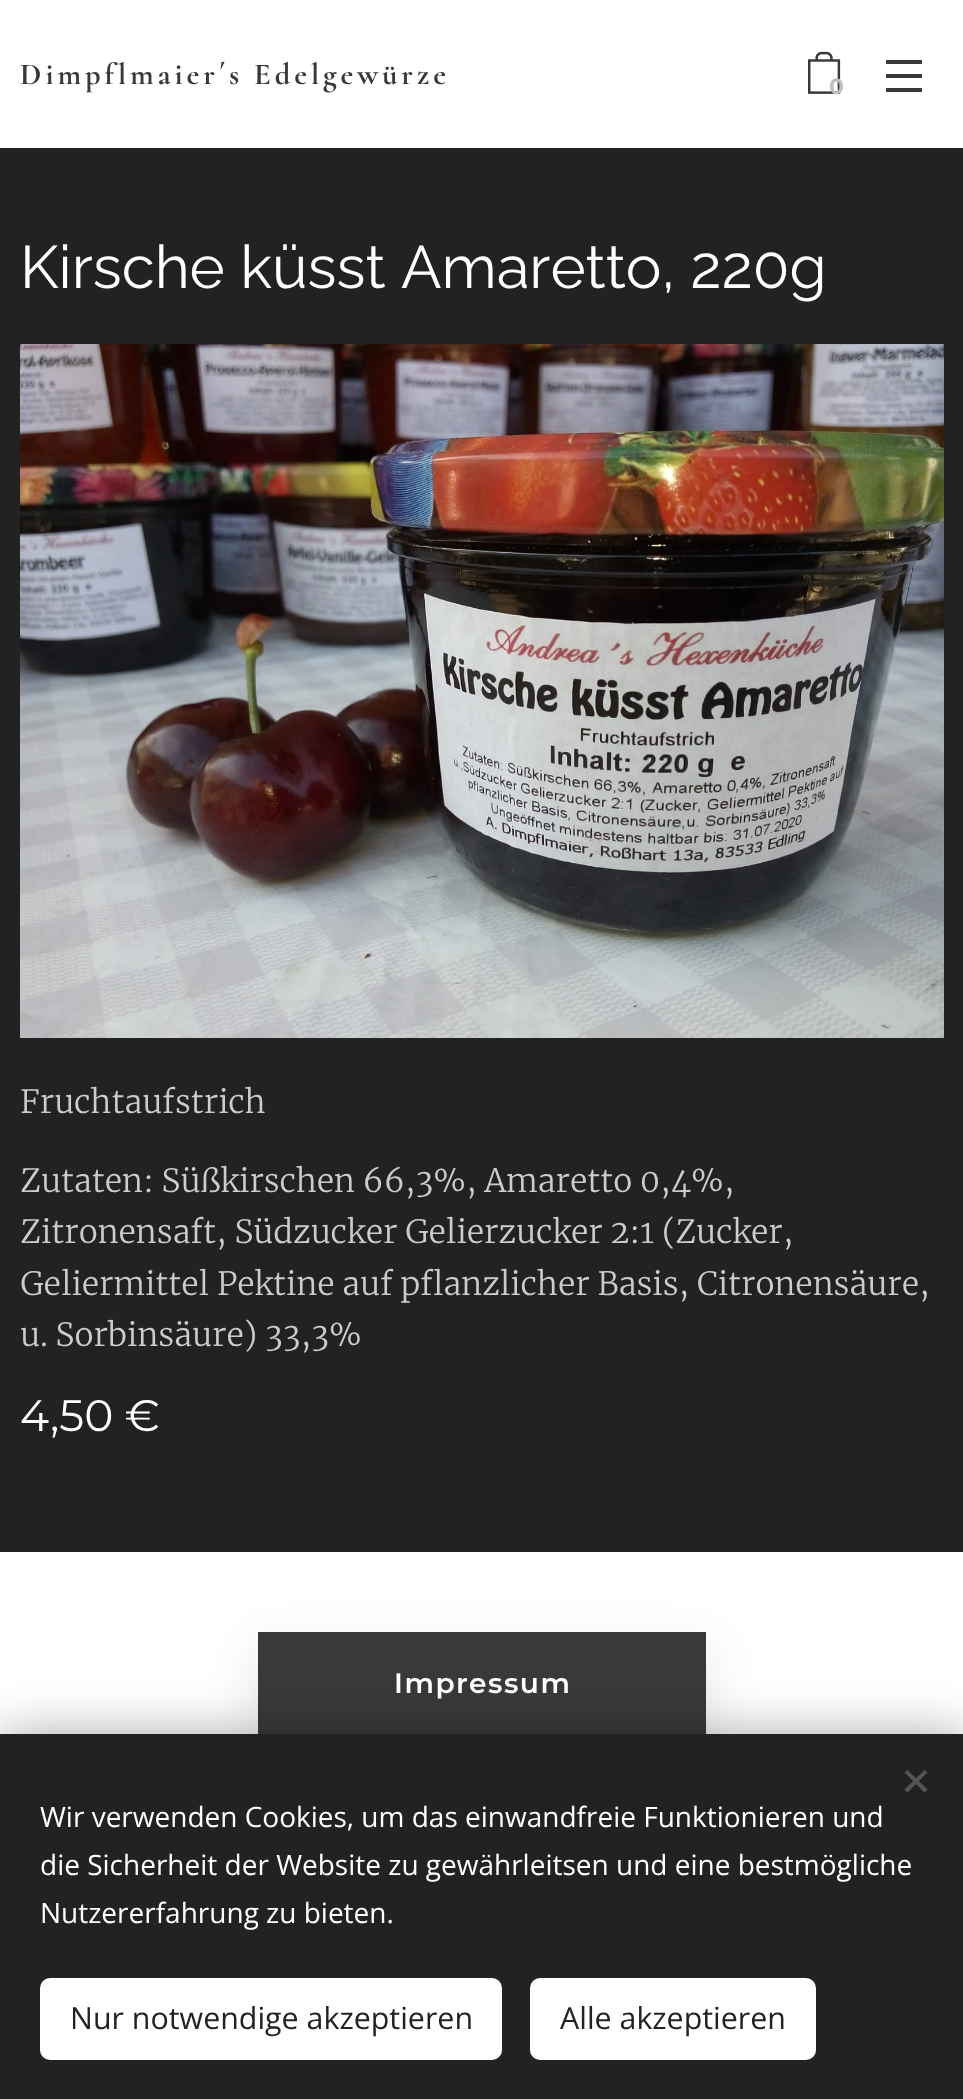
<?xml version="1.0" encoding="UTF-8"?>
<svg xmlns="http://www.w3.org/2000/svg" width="963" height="2099">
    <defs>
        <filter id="blur1" x="-50%" y="-200%" width="200%" height="500%"><feGaussianBlur stdDeviation="25"/></filter>
    </defs>
    <rect width="100%" height="100%" fill="#FFFFFF"/>
    <text x="20" y="84" font-family="Cormorant" font-size="30.4" font-weight="700" letter-spacing="4" fill="#393939">Dimpflmaier´s</text>
    <text x="254" y="84" font-family="Cormorant" font-size="30.4" font-weight="700" letter-spacing="4" fill="#393939">Edelgewürze</text>
    <image x="808" y="51" width="33" height="43" href="img_01.png"/>
    <text x="829" y="94" font-family="Montserrat" font-size="22" font-weight="700" fill="#BFBFBF">0</text>
    <rect x="886" y="74" width="36" height="4" fill="#393939"/>
    <rect x="886" y="60" width="36" height="4" fill="#393939"/>
    <rect x="886" y="88" width="36" height="4" fill="#393939"/>
    <rect x="0" y="148" width="963" height="1404" fill="#222222"/>
    <text x="20" y="288" font-family="Raleway" font-size="60" fill="#FFFFFF">Kirsche küsst Amaretto, 220g</text>
    <image x="20" y="344" width="924" height="694" href="img_02.png"/>
    <text x="20" y="1113" font-family="Merriweather" font-size="32" font-weight="300" fill="#CCCCCC">Fruchtaufstrich</text>
    <text font-family="Merriweather" font-size="32" font-weight="300" fill="#CCCCCC">
        <tspan x="20" y="1192">Zutaten: Süßkirschen 66,3%, Amaretto 0,4%,</tspan>
        <tspan x="20" y="1243">Zitronensaft, Südzucker Gelierzucker 2:1 (Zucker,</tspan>
        <tspan x="20" y="1295">Geliermittel Pektine auf pflanzlicher Basis, Citronensäure,</tspan>
        <tspan x="20" y="1346">u. Sorbinsäure) 33,3%</tspan>
    </text>
    <text x="20" y="1431" font-family="Montserrat" font-size="44" fill="#FFFFFF">4,50 €</text>
    <rect x="258" y="1648" width="448" height="104" fill="#000000" fill-opacity="0.1" filter="url(#blur1)"/>
    <rect x="258" y="1632" width="448" height="102" fill="#393939"/>
    <text x="394" y="1693" font-family="Montserrat" font-size="28" font-weight="600" letter-spacing="1.5" fill="#FFFFFF">Impressum</text>
    <rect x="0" y="1734" width="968" height="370" fill="#000000" fill-opacity="0.33" filter="url(#blur1)"/>
    <rect x="0" y="1734" width="963" height="365" fill="#222222"/>
    <path d="M 904.5 1789.5 L 924.5 1770 L 927.5 1772.5 L 907.5 1792.5 Z" fill="#555555"/>
    <path d="M 907.5 1770 L 927.5 1789.5 L 924.5 1792.5 L 904.5 1772.5 Z" fill="#555555"/>
    <text font-family="Open Sans" font-size="28" fill="#FFFFFF">
        <tspan x="40" y="1827">Wir verwenden Cookies, um das einwandfreie Funktionieren und</tspan>
        <tspan x="40" y="1875">die Sicherheit der Website zu gewährleitsen und eine bestmögliche</tspan>
        <tspan x="40" y="1923">Nutzererfahrung zu bieten.</tspan>
    </text>
    <rect x="40" y="1978" width="462" height="82" rx="10" fill="#FFFFFF"/>
    <text x="70" y="2029" font-family="Open Sans" font-size="30.4" fill="#222222">Nur notwendige akzeptieren</text>
    <rect x="530" y="1978" width="286" height="82" rx="10" fill="#FFFFFF"/>
    <text x="560" y="2029" font-family="Open Sans" font-size="30.4" fill="#222222">Alle akzeptieren</text>
</svg>
